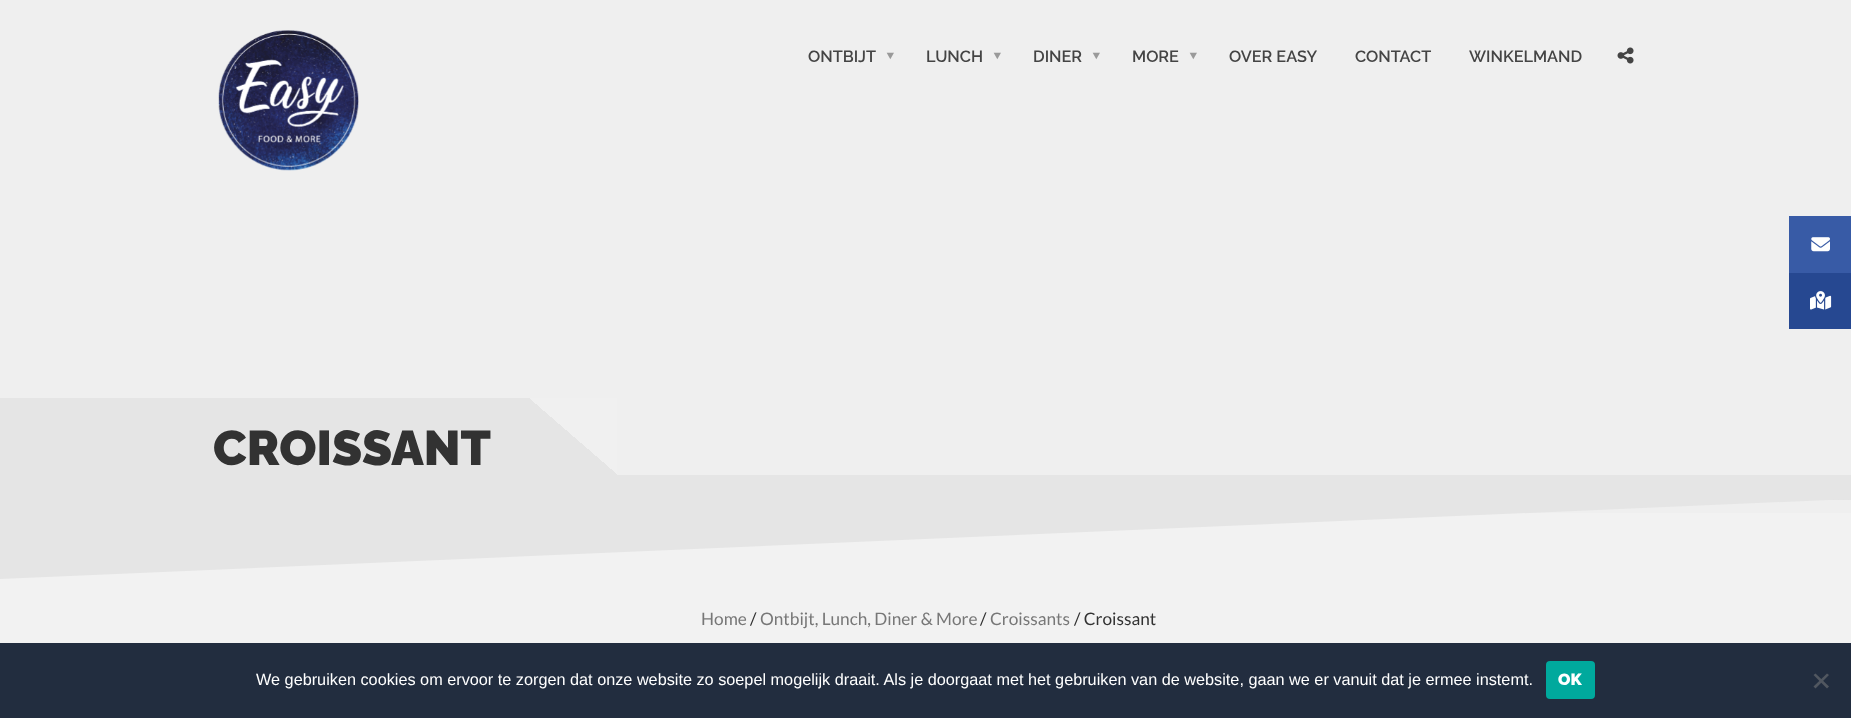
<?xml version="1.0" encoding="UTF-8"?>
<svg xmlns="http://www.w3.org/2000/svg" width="1851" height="718">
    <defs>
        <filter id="blur1" x="-50%" y="-200%" width="200%" height="500%"><feGaussianBlur stdDeviation="0.5"/></filter>
        <linearGradient id="g1" gradientUnits="userSpaceOnUse" x1="0" y1="436" x2="1851" y2="436"><stop offset="0.15" stop-color="#E5E5E5"/><stop offset="0.15" stop-color="#F0F0F0"/><stop offset="1" stop-color="#F0F0F0"/></linearGradient>
        <linearGradient id="g2" gradientUnits="userSpaceOnUse" x1="535" y1="481" x2="612" y2="392"><stop offset="0" stop-color="#E5E5E5"/><stop offset="0.5" stop-color="#E5E5E5"/><stop offset="0.5" stop-color="#F0F0F0"/><stop offset="1" stop-color="#F0F0F0"/></linearGradient>
    </defs>
    <rect width="100%" height="100%" fill="#EFEFEF"/>
    <rect x="0" y="0" width="1851" height="113" fill="#000000" fill-opacity="0.2" filter="url(#blur1)"/>
    <rect x="0" y="0" width="1851" height="113" fill="#EFEFEF"/>
    <image x="218" y="30" width="141" height="141" href="img_01.png"/>
    <text x="808" y="62" font-family="Raleway" font-size="16.25" font-weight="600" fill="#444444">ONTBIJT</text>
    <text x="881" y="51" transform="rotate(90 881 51)" font-family="Noto Sans" font-size="25" fill="#9A9A9A">‣</text>
    <text x="926" y="62" font-family="Raleway" font-size="16.25" font-weight="600" fill="#444444">LUNCH</text>
    <text x="988" y="51" transform="rotate(90 988 51)" font-family="Noto Sans" font-size="25" fill="#9A9A9A">‣</text>
    <text x="1033" y="62" font-family="Raleway" font-size="16.25" font-weight="600" fill="#444444">DINER</text>
    <text x="1087" y="51" transform="rotate(90 1087 51)" font-family="Noto Sans" font-size="25" fill="#9A9A9A">‣</text>
    <text x="1132" y="62" font-family="Raleway" font-size="16.25" font-weight="600" fill="#444444">MORE</text>
    <text x="1184" y="51" transform="rotate(90 1184 51)" font-family="Noto Sans" font-size="25" fill="#9A9A9A">‣</text>
    <text x="1229" y="62" font-family="Raleway" font-size="16.25" font-weight="600" fill="#444444">OVER EASY</text>
    <text x="1355" y="62" font-family="Raleway" font-size="16.25" font-weight="600" fill="#444444">CONTACT</text>
    <text x="1469" y="62" font-family="Raleway" font-size="16.25" font-weight="600" fill="#444444">WINKELMAND</text>
    <image x="1617" y="47" width="17" height="17" href="img_02.png"/>
    <rect x="0" y="398" width="278" height="77" fill="url(#g1)"/>
    <rect x="278" y="398" width="251" height="77" fill="#E5E5E5"/>
    <text x="213" y="465" font-family="Raleway" font-size="48.75" font-weight="900" fill="#323232">CROISSANT</text>
    <rect x="529" y="398" width="88" height="77" fill="url(#g2)"/>
    <rect x="0" y="475" width="1851" height="25" fill="#E5E5E5"/>
    <rect x="0" y="513" width="1851" height="130" fill="#F2F2F2"/>
    <path d="M 1851 499 H 0 V 579 Z" fill="#E5E5E5"/>
    <text x="701" y="625" font-family="Lato" font-size="17.25" fill="#777777">Home</text>
    <text x="750" y="625" font-family="Lato" font-size="17.25" fill="#323232">/</text>
    <text x="760" y="625" font-family="Lato" font-size="17.25" fill="#777777">Ontbijt, Lunch, Diner &amp; More</text>
    <text x="980" y="625" font-family="Lato" font-size="17.25" fill="#323232">/</text>
    <text x="990" y="625" font-family="Lato" font-size="17.25" fill="#777777">Croissants</text>
    <text x="1074" y="625" font-family="Lato" font-size="17.25" fill="#323232">/ Croissant</text>
    <rect x="1789" y="216" width="62" height="57" fill="#385BA6"/>
    <image x="1811" y="237" width="19" height="15" href="img_03.png"/>
    <rect x="1789" y="273" width="62" height="56" fill="#264891"/>
    <image x="1810" y="291" width="22" height="19" href="img_04.png"/>
    <rect x="0" y="643" width="1851" height="75" fill="#222D3F"/>
    <text x="256" y="685" font-family="Liberation Sans" font-size="16.25" fill="#FFFFFF">We gebruiken cookies om ervoor te zorgen dat onze website zo soepel mogelijk draait. Als je doorgaat met het gebruiken van de website, gaan we er vanuit dat je ermee instemt.</text>
    <rect x="1546" y="661" width="49" height="38" rx="4" fill="#00A99D"/>
    <text x="1558" y="685" font-family="Raleway" font-size="16.25" font-weight="900" fill="#FFFFFF">OK</text>
    <path d="M 1827 673.5 L 1829 675 L 1815.5 688.5 L 1813.5 686.5 Z" fill="#515760"/>
    <path d="M 1813.5 675 L 1815.5 673.5 L 1829 686.5 L 1827 688.5 Z" fill="#515760"/>
</svg>
